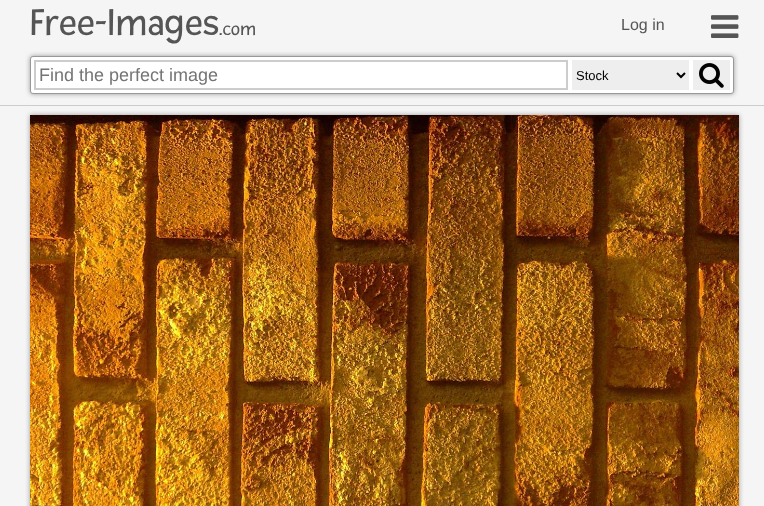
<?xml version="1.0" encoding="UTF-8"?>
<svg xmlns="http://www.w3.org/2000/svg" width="764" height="506">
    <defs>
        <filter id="blur1" x="-50%" y="-200%" width="200%" height="500%"><feGaussianBlur stdDeviation="2.5"/></filter>
    </defs>
    <rect width="100%" height="100%" fill="#F5F5F5"/>
    <rect x="0" y="105" width="764" height="1" fill="#CCCCCC"/>
    <text x="30" y="35" font-family="Fresca" font-size="40" fill="#555555">Free-Images</text>
    <text x="219" y="35" font-family="Fresca" font-size="20" fill="#555555">.com</text>
    <rect x="30" y="56" width="704" height="38" rx="3" fill="#999999" filter="url(#blur1)"/>
    <rect x="30.5" y="56.5" width="703" height="37" rx="2.5" fill="#FFFFFF" stroke="#999999"/>
    <rect x="35" y="61" width="532" height="28" fill="none" stroke="#CCCCCC" stroke-width="2"/>
    <text x="39" y="81" font-family="Liberation Sans" font-size="18" fill="#757575">Find the perfect image</text>
    <rect x="572" y="60" width="117" height="30" fill="#EEEEEE"/>
    <path d="M 677 73 L 681 77 L 685 73" fill="none" stroke="#000000" stroke-width="2"/>
    <text x="576" y="80" font-family="Liberation Sans" font-size="13" fill="#000000">Stock</text>
    <rect x="693" y="60" width="37" height="30" fill="#EEEEEE"/>
    <image x="699" y="63" width="25" height="25" href="img_01.png"/>
    <text x="621" y="30" font-family="Liberation Sans" font-size="16" fill="#555555">Log in</text>
    <image x="711" y="15" width="28" height="23" href="img_02.png"/>
    <rect x="30" y="115" width="709" height="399" fill="#999999" filter="url(#blur1)"/>
    <image x="30" y="115" width="709" height="391" href="img_03.png"/>
</svg>
